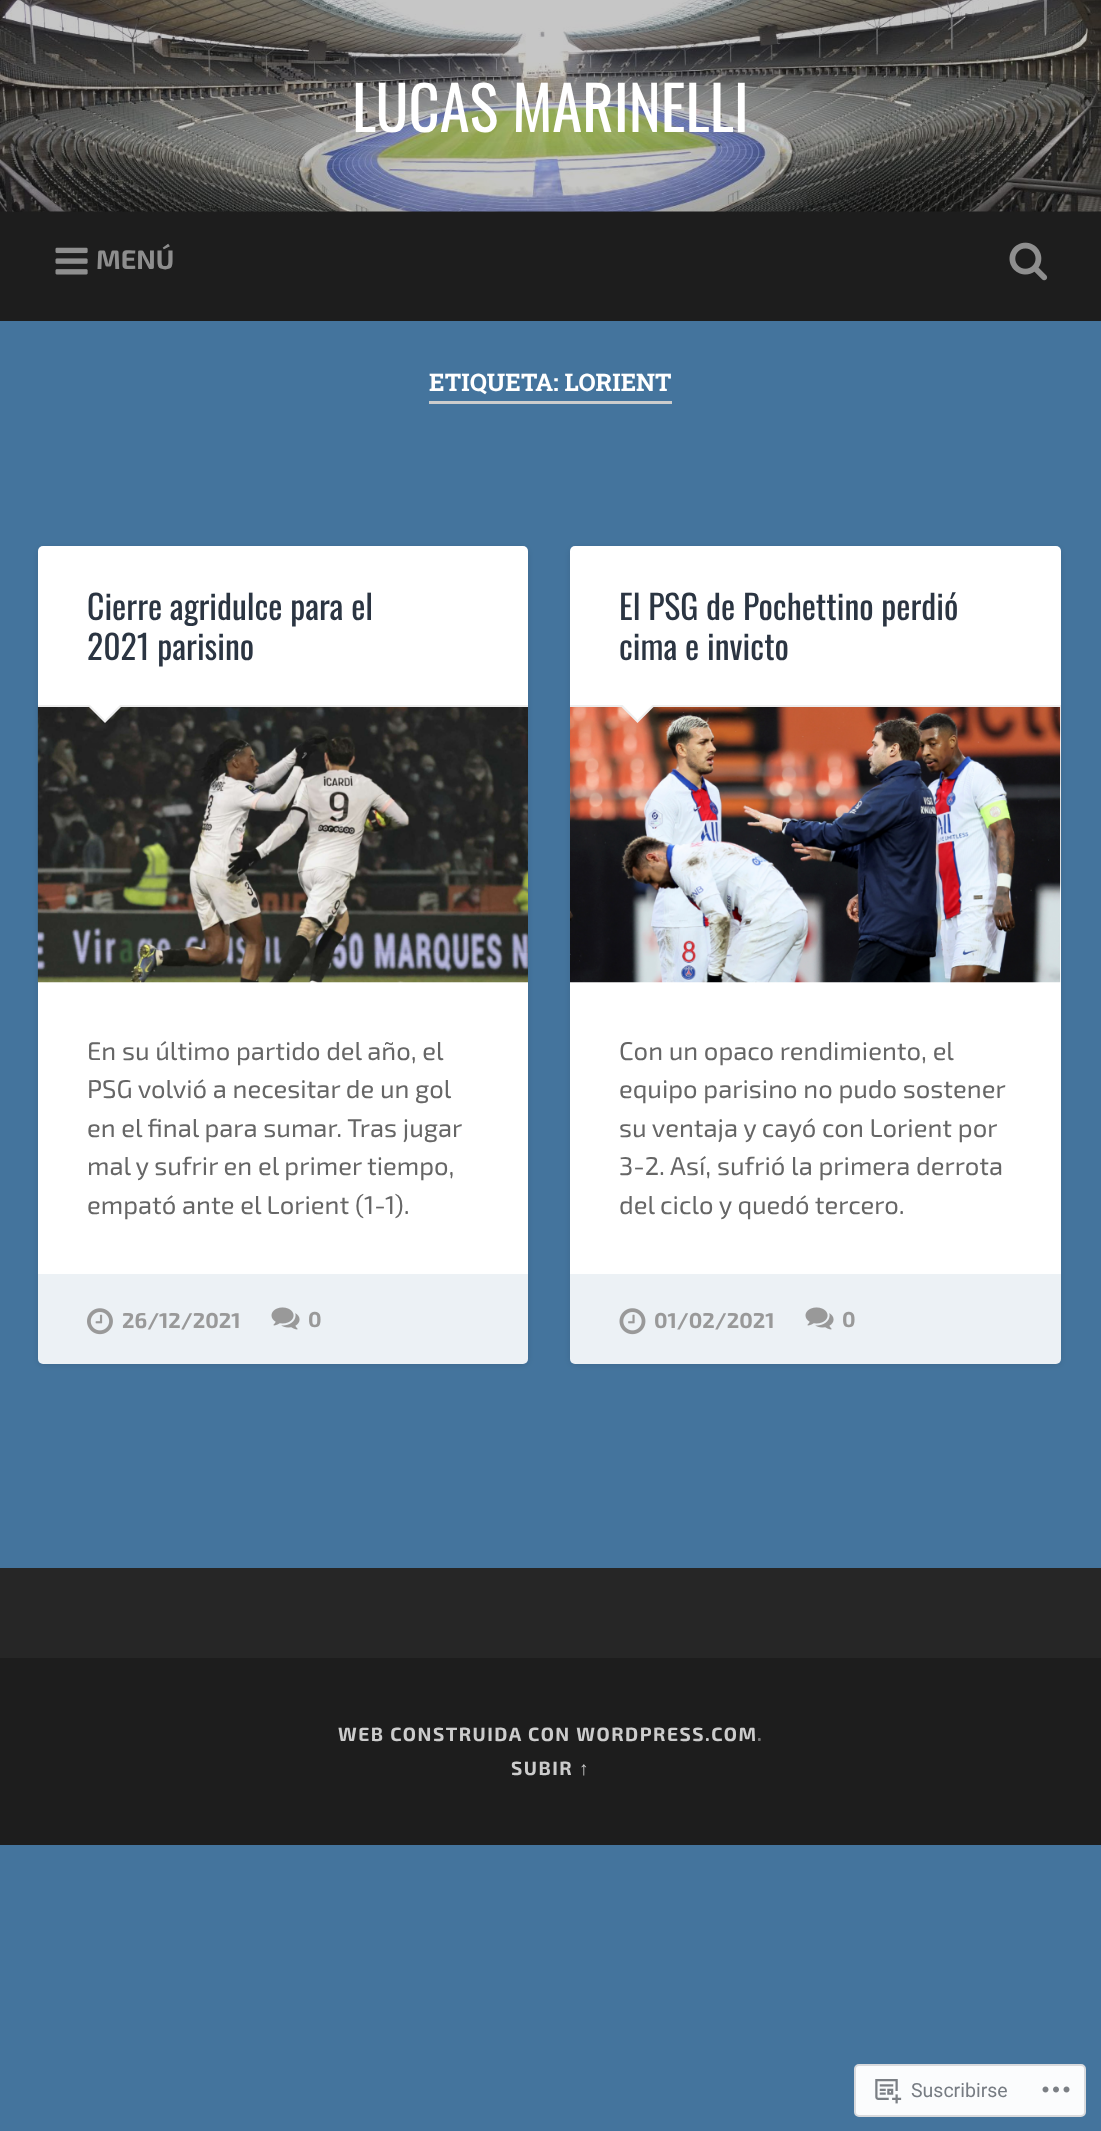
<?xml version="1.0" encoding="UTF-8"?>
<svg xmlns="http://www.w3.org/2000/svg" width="1101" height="2131">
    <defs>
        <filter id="blur1" x="-50%" y="-200%" width="200%" height="500%"><feGaussianBlur stdDeviation="3"/></filter>
    </defs>
    <rect width="100%" height="100%" fill="#44749D"/>
    <rect x="0" y="211" width="1101" height="110" fill="#1D1D1D"/>
    <image x="0" y="0" width="1101" height="212" href="img_01.png"/>
    <text x="352" y="132" font-family="Oswald" font-size="60.75" fill="#FFFFFF">LUCAS MARINELLI</text>
    <image x="55" y="247" width="33" height="28" href="img_02.png"/>
    <text x="96" y="269" font-family="'Exo 2'" font-size="27" font-weight="700" fill="#8E8E8E">MENÚ</text>
    <image x="1009" y="242" width="39" height="39" href="img_03.png"/>
    <rect x="429" y="401" width="243" height="3" fill="#CCCCCC"/>
    <text x="429" y="391" font-family="Roboto Slab" font-size="24.25" font-weight="700" fill="#FFFFFF">ETIQUETA: LORIENT</text>
    <rect x="38" y="548" width="490" height="817" rx="5" fill="#000000" fill-opacity="0.1" filter="url(#blur1)"/>
    <rect x="38" y="546" width="490" height="818" rx="5" fill="#FFFFFF"/>
    <image x="37" y="706" width="491" height="277" href="img_04.png"/>
    <rect x="38" y="705" width="490" height="2" fill="#EEEEEE"/>
    <text font-family="Oswald" font-size="33.75" fill="#2B3542">
        <tspan x="87" y="620">Cierre agridulce para el</tspan>
        <tspan x="87" y="660">2021 parisino</tspan>
    </text>
    <path d="M 87 705 H 123 L 105 723 Z" fill="#EEEEEE"/>
    <path d="M 88.5 703.5 H 121.5 L 105 720 Z" fill="#FFFFFF"/>
    <text font-family="'Exo 2'" font-size="25.6" fill="#666666">
        <tspan x="87" y="1060">En su último partido del año, el</tspan>
        <tspan x="87" y="1098">PSG volvió a necesitar de un gol</tspan>
        <tspan x="87" y="1137">en el final para sumar. Tras jugar</tspan>
        <tspan x="87" y="1175">mal y sufrir en el primer tiempo,</tspan>
        <tspan x="87" y="1214">empató ante el Lorient (1-1).</tspan>
    </text>
    <path d="M 38 1274 H 528 V 1359 C 528 1362 526 1364 523 1364 H 43 C 40 1364 38 1362 38 1359 Z" fill="#44749D" fill-opacity="0.1"/>
    <image x="87" y="1308" width="26" height="27" href="img_05.png"/>
    <text x="122" y="1328" font-family="'Exo 2'" font-size="21.5" font-weight="700" fill="#999999">26/12/2021</text>
    <image x="271" y="1307" width="29" height="23" href="img_06.png"/>
    <text x="308" y="1327" font-family="'Exo 2'" font-size="21.5" font-weight="700" fill="#999999">0</text>
    <rect x="570" y="548" width="491" height="817" rx="5" fill="#000000" fill-opacity="0.1" filter="url(#blur1)"/>
    <rect x="570" y="546" width="491" height="818" rx="5" fill="#FFFFFF"/>
    <rect x="570" y="705" width="491" height="2" fill="#EEEEEE"/>
    <text font-family="Oswald" font-size="33.75" fill="#2B3542">
        <tspan x="619" y="620">El PSG de Pochettino perdió</tspan>
        <tspan x="619" y="660">cima e invicto</tspan>
    </text>
    <image x="570" y="707" width="491" height="276" href="img_07.png"/>
    <path d="M 619.5 705 H 655.5 L 637.5 723 Z" fill="#EEEEEE"/>
    <path d="M 621 703.5 H 654 L 637.5 720 Z" fill="#FFFFFF"/>
    <text font-family="'Exo 2'" font-size="25.6" fill="#666666">
        <tspan x="619" y="1060">Con un opaco rendimiento, el</tspan>
        <tspan x="619" y="1098">equipo parisino no pudo sostener</tspan>
        <tspan x="619" y="1137">su ventaja y cayó con Lorient por</tspan>
        <tspan x="619" y="1175">3-2. Así, sufrió la primera derrota</tspan>
        <tspan x="619" y="1214">del ciclo y quedó tercero.</tspan>
    </text>
    <path d="M 570 1274 H 1061 V 1359 C 1061 1362 1059 1364 1056 1364 H 575 C 572 1364 570 1362 570 1359 Z" fill="#44749D" fill-opacity="0.1"/>
    <image x="619" y="1308" width="27" height="27" href="img_08.png"/>
    <text x="654" y="1328" font-family="'Exo 2'" font-size="21.5" font-weight="700" fill="#999999">01/02/2021</text>
    <image x="805" y="1307" width="29" height="23" href="img_06.png"/>
    <text x="842" y="1327" font-family="'Exo 2'" font-size="21.5" font-weight="700" fill="#999999">0</text>
    <rect x="0" y="1568" width="1101" height="90" fill="#262626"/>
    <rect x="0" y="1658" width="1101" height="187" fill="#1D1D1D"/>
    <text x="338" y="1741" font-family="'Exo 2'" font-size="19.2" font-weight="700" letter-spacing="1.5" fill="#CCCCCC">WEB CONSTRUIDA CON WORDPRESS.COM</text>
    <text x="757" y="1741" font-family="'Exo 2'" font-size="19.2" font-weight="700" letter-spacing="1.5" fill="#767676">.</text>
    <text x="511" y="1775" font-family="'Exo 2'" font-size="19.2" font-weight="700" letter-spacing="1.5" fill="#CCCCCC">SUBIR</text>
    <text x="579" y="1775" font-family="Liberation Sans" font-size="19.2" font-weight="700" letter-spacing="1.5" fill="#CCCCCC">↑</text>
    <rect x="855" y="2065" width="230" height="51" rx="4" fill="#FBFCFD" stroke="#D9DADD" stroke-width="2"/>
    <image x="875" y="2079" width="27" height="25" href="img_09.png"/>
    <text x="911" y="2097" font-family="Roboto" font-size="19.5" fill="#777C83">Suscribirse</text>
    <image x="1042" y="2086" width="28" height="7" href="img_10.png"/>
</svg>
